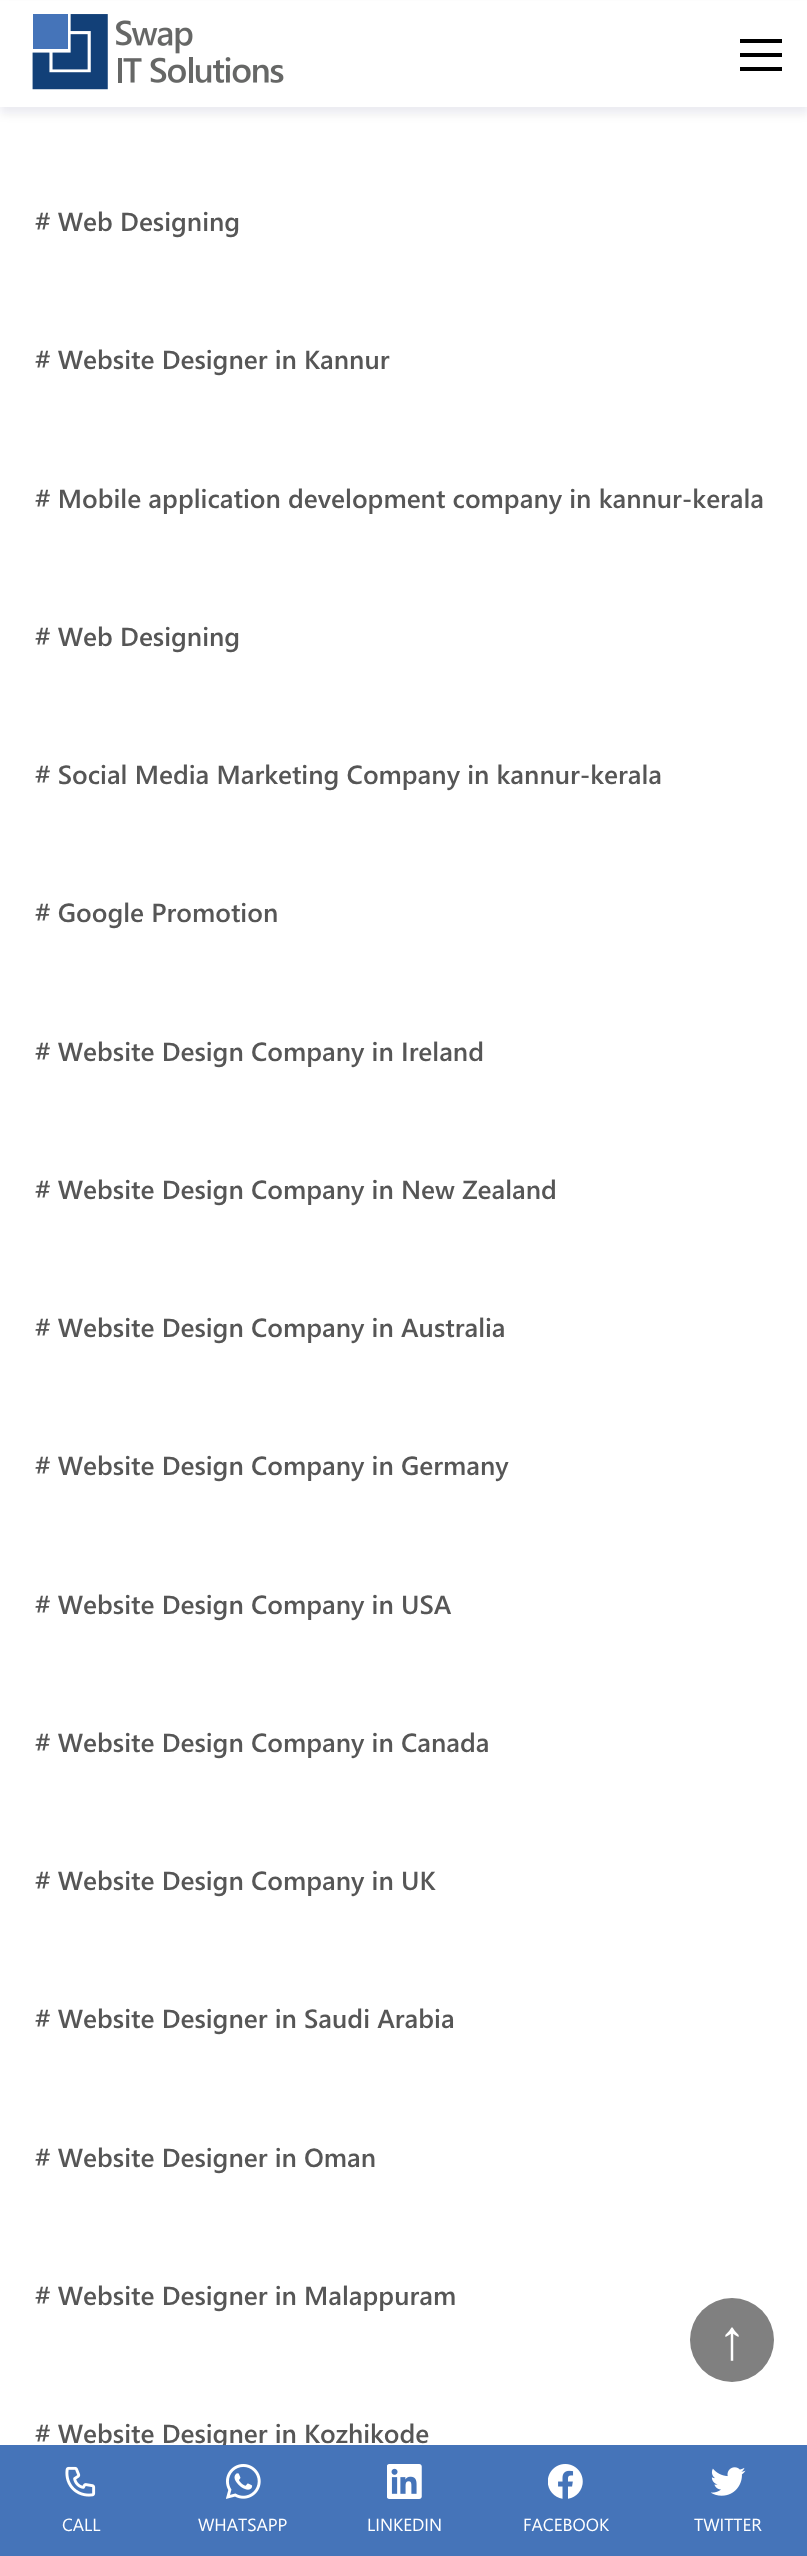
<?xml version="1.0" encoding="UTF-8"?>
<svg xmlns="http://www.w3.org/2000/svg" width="807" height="2556">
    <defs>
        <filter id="blur1" x="-50%" y="-200%" width="200%" height="500%"><feGaussianBlur stdDeviation="5"/></filter>
    </defs>
    <rect width="100%" height="100%" fill="#FFFFFF"/>
    <rect x="0" y="7" width="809" height="107" fill="#0C002E" fill-opacity="0.08" filter="url(#blur1)"/>
    <rect x="0" y="1" width="807" height="106" fill="#FFFFFF"/>
    <image x="32" y="14" width="252" height="76" href="img_01.png"/>
    <rect x="740" y="39" width="42" height="4" fill="#000000"/>
    <rect x="740" y="53" width="42" height="4" fill="#000000"/>
    <rect x="740" y="67" width="42" height="4" fill="#000000"/>
    <text x="35" y="231" font-family="Segoe UI" font-size="26.25" font-weight="600" fill="#565656"># Web Designing</text>
    <text x="35" y="369" font-family="Segoe UI" font-size="26.25" font-weight="600" fill="#565656"># Website Designer in Kannur</text>
    <text x="35" y="508" font-family="Segoe UI" font-size="26.25" font-weight="600" fill="#565656"># Mobile application development company in kannur-kerala</text>
    <text x="35" y="646" font-family="Segoe UI" font-size="26.25" font-weight="600" fill="#565656"># Web Designing</text>
    <text x="35" y="784" font-family="Segoe UI" font-size="26.25" font-weight="600" fill="#565656"># Social Media Marketing Company in kannur-kerala</text>
    <text x="35" y="922" font-family="Segoe UI" font-size="26.25" font-weight="600" fill="#565656"># Google Promotion</text>
    <text x="35" y="1061" font-family="Segoe UI" font-size="26.25" font-weight="600" fill="#565656"># Website Design Company in Ireland</text>
    <text x="35" y="1199" font-family="Segoe UI" font-size="26.25" font-weight="600" fill="#565656"># Website Design Company in New Zealand</text>
    <text x="35" y="1337" font-family="Segoe UI" font-size="26.25" font-weight="600" fill="#565656"># Website Design Company in Australia</text>
    <text x="35" y="1475" font-family="Segoe UI" font-size="26.25" font-weight="600" fill="#565656"># Website Design Company in Germany</text>
    <text x="35" y="1614" font-family="Segoe UI" font-size="26.25" font-weight="600" fill="#565656"># Website Design Company in USA</text>
    <text x="35" y="1752" font-family="Segoe UI" font-size="26.25" font-weight="600" fill="#565656"># Website Design Company in Canada</text>
    <text x="35" y="1890" font-family="Segoe UI" font-size="26.25" font-weight="600" fill="#565656"># Website Design Company in UK</text>
    <text x="35" y="2028" font-family="Segoe UI" font-size="26.25" font-weight="600" fill="#565656"># Website Designer in Saudi Arabia</text>
    <text x="35" y="2167" font-family="Segoe UI" font-size="26.25" font-weight="600" fill="#565656"># Website Designer in Oman</text>
    <text x="35" y="2305" font-family="Segoe UI" font-size="26.25" font-weight="600" fill="#565656"># Website Designer in Malappuram</text>
    <text x="35" y="2443" font-family="Segoe UI" font-size="26.25" font-weight="600" fill="#565656"># Website Designer in Kozhikode</text>
    <circle cx="732" cy="2340" r="42" fill="#808080"/>
    <text x="718" y="2359" font-family="Liberation Sans" font-size="56" fill="#FFFFFF">↑</text>
    <rect x="0" y="2445" width="807" height="111" fill="#4574B9"/>
    <image x="65" y="2466" width="31" height="31" href="img_02.png"/>
    <text x="62" y="2531" font-family="Segoe UI" font-size="17.5" fill="#FFFFFF">CALL</text>
    <image x="226" y="2464" width="35" height="35" href="img_03.png"/>
    <text x="198" y="2531" font-family="Segoe UI" font-size="17.5" fill="#FFFFFF">WHATSAPP</text>
    <image x="387" y="2464" width="35" height="35" href="img_04.png"/>
    <text x="367" y="2531" font-family="Segoe UI" font-size="17.5" fill="#FFFFFF">LINKEDIN</text>
    <image x="548" y="2464" width="35" height="35" href="img_05.png"/>
    <text x="523" y="2531" font-family="Segoe UI" font-size="17.5" fill="#FFFFFF">FACEBOOK</text>
    <image x="711" y="2467" width="35" height="29" href="img_06.png"/>
    <text x="694" y="2531" font-family="Segoe UI" font-size="17.5" fill="#FFFFFF">TWITTER</text>
</svg>
